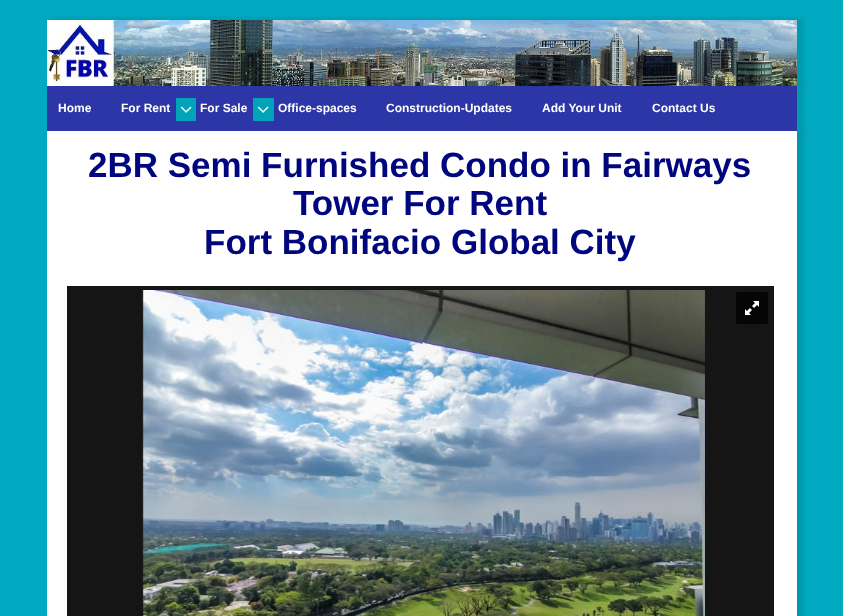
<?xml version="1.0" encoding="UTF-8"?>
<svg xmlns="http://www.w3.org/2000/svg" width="843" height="616">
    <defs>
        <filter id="blur1" x="-50%" y="-200%" width="200%" height="500%"><feGaussianBlur stdDeviation="2.5"/></filter>
    </defs>
    <rect width="100%" height="100%" fill="#01AAC1"/>
    <rect x="50" y="18" width="754" height="70" fill="#0199AE" filter="url(#blur1)"/>
    <rect x="50" y="84" width="754" height="49" fill="#0199AE" filter="url(#blur1)"/>
    <image x="47" y="20" width="750" height="66" href="img_01.png"/>
    <rect x="50" y="129" width="754" height="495" fill="#0199AE" filter="url(#blur1)"/>
    <rect x="47" y="86" width="750" height="45" fill="#2C36A7"/>
    <text x="58" y="112" font-family="Liberation Sans" font-size="12" font-weight="700" fill="#FFFFFF">Home</text>
    <text x="121" y="112" font-family="Liberation Sans" font-size="12" font-weight="700" fill="#FFFFFF">For Rent</text>
    <rect x="176" y="98" width="20" height="23" fill="#01A3B9"/>
    <image x="180" y="106" width="12" height="7" href="img_02.png"/>
    <text x="200" y="112" font-family="Liberation Sans" font-size="12" font-weight="700" fill="#FFFFFF">For Sale</text>
    <rect x="253" y="98" width="21" height="23" fill="#01A3B9"/>
    <image x="257" y="106" width="12" height="7" href="img_02.png"/>
    <text x="278" y="112" font-family="Liberation Sans" font-size="12" font-weight="700" fill="#FFFFFF">Office-spaces</text>
    <text x="386" y="112" font-family="Liberation Sans" font-size="12" font-weight="700" fill="#FFFFFF">Construction-Updates</text>
    <text x="542" y="112" font-family="Liberation Sans" font-size="12" font-weight="700" fill="#FFFFFF">Add Your Unit</text>
    <text x="652" y="112" font-family="Liberation Sans" font-size="12" font-weight="700" fill="#FFFFFF">Contact Us</text>
    <rect x="47" y="131" width="750" height="485" fill="#FFFFFF"/>
    <text x="88" y="177" font-family="Liberation Sans" font-size="35" font-weight="700" fill="#00067D">2BR Semi Furnished Condo in Fairways</text>
    <text x="293" y="215" font-family="Liberation Sans" font-size="35" font-weight="700" fill="#00067D">Tower For Rent</text>
    <text x="204" y="254" font-family="Liberation Sans" font-size="35" font-weight="700" fill="#00067D">Fort Bonifacio Global City</text>
    <rect x="67" y="286" width="707" height="330" fill="#151515"/>
    <image x="142" y="290" width="563" height="326" href="img_03.png"/>
    <rect x="736" y="292" width="32" height="32" rx="2" fill="#050505"/>
    <image x="745" y="301" width="14" height="14" href="img_04.png"/>
</svg>
